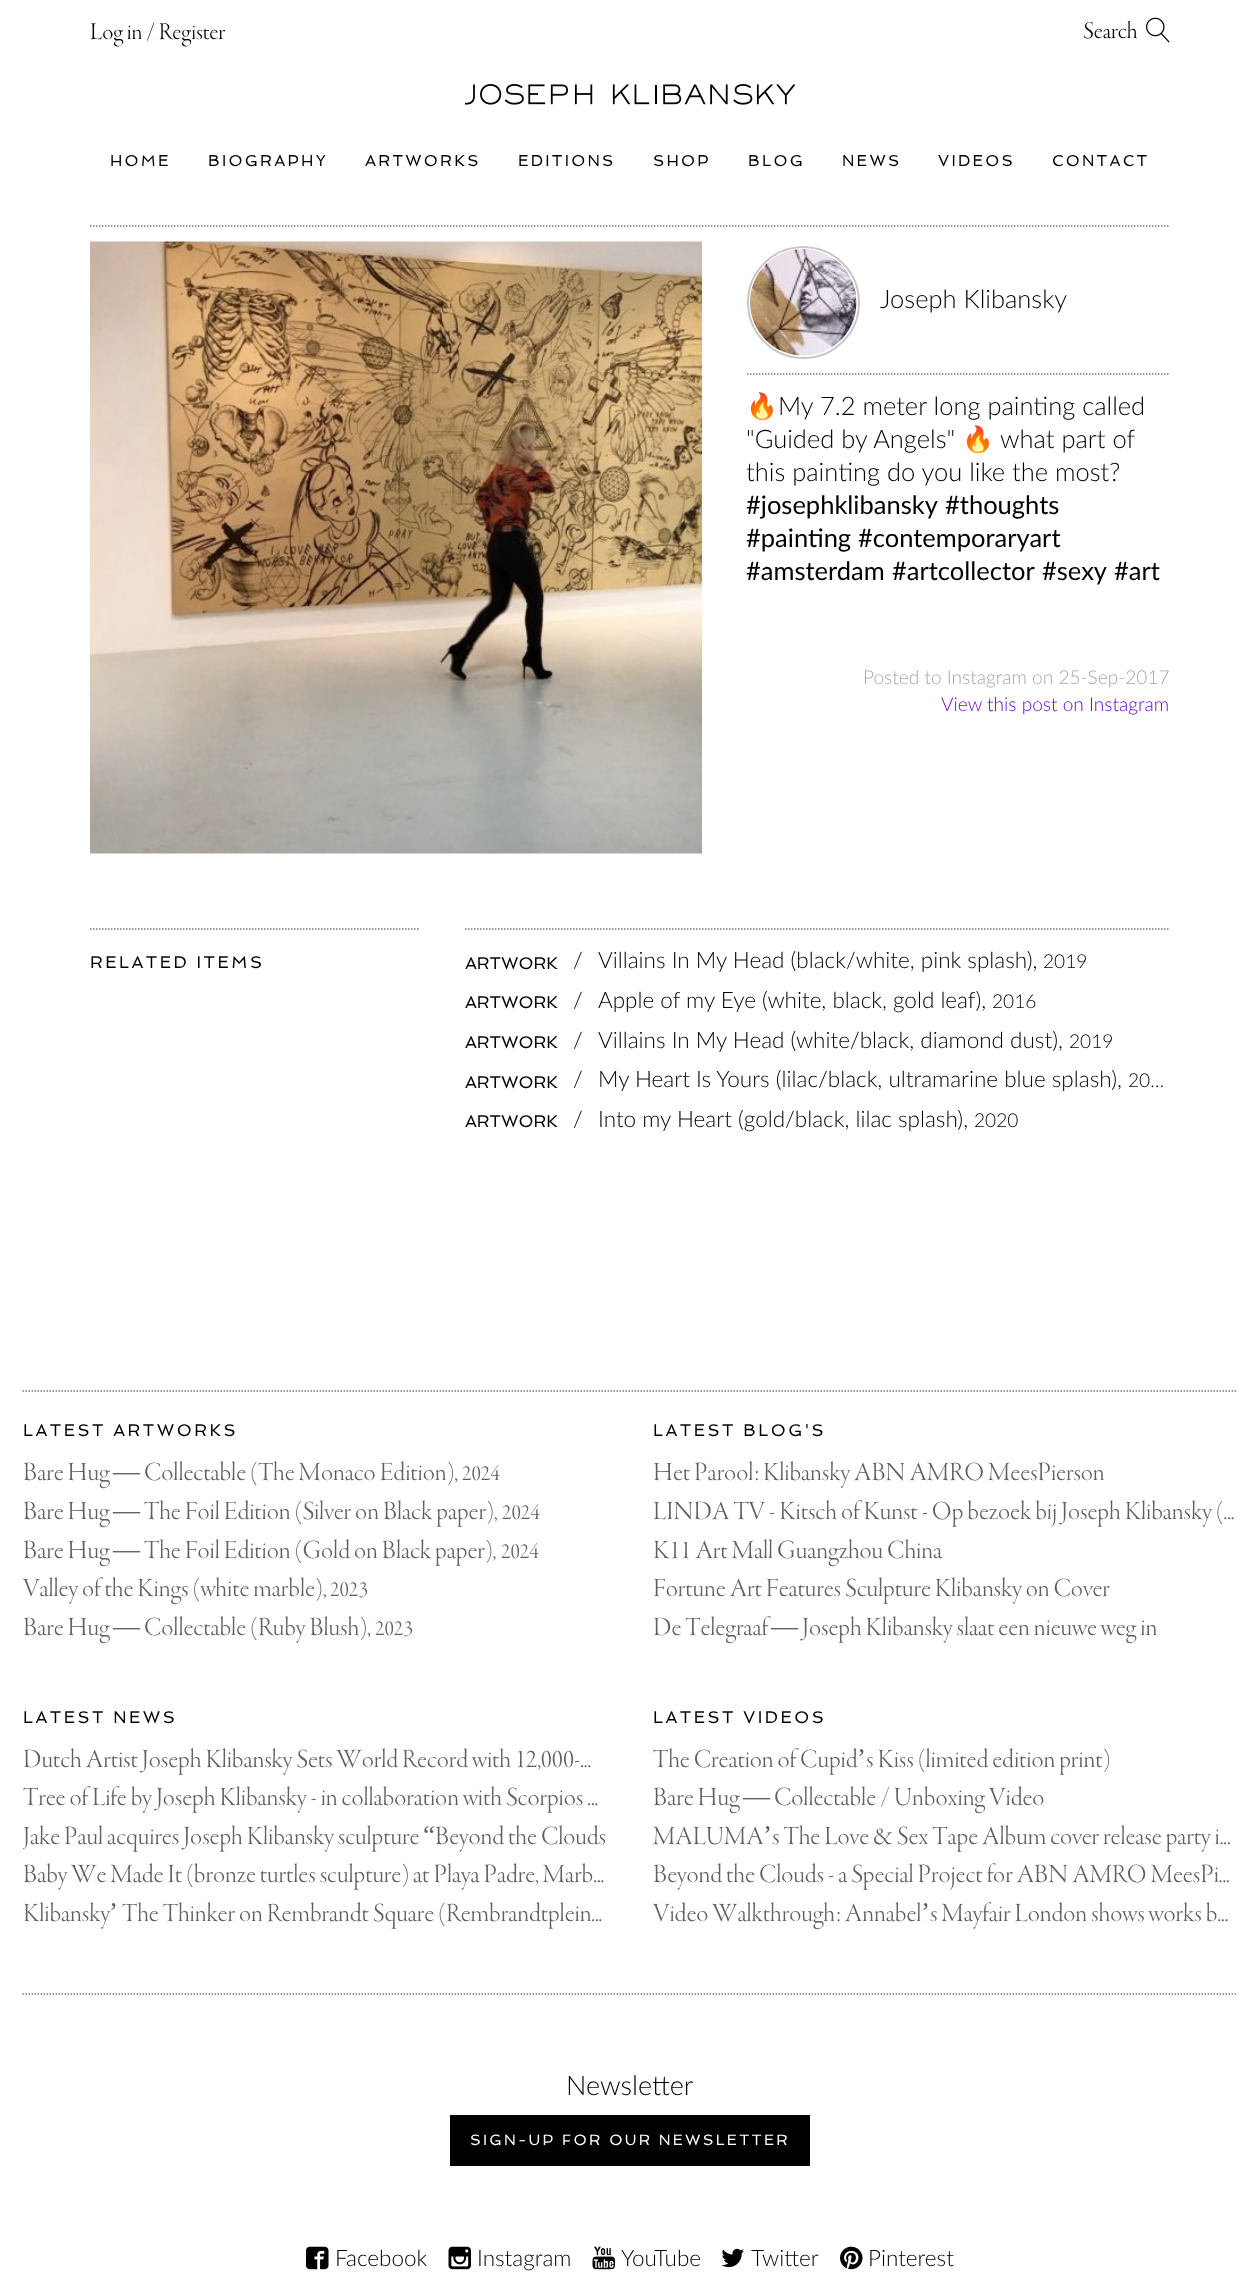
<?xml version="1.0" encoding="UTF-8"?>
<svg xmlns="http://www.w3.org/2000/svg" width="1259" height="2285">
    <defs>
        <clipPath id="clip1"><rect x="23" y="1818" width="585" height="39"/></clipPath>
    </defs>
    <rect width="100%" height="100%" fill="#FFFFFF"/>
    <text x="90" y="39" font-family="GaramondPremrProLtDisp" font-size="24.75" font-weight="200" fill="#000000">Log in / Register</text>
    <text x="1083" y="38" font-family="GaramondPremrProLtDisp" font-size="24.75" font-weight="200" fill="#000000">Search</text>
    <image x="1146" y="17" width="24" height="26" href="img_01.png"/>
    <image x="465" y="84" width="330" height="21" href="img_02.png"/>
    <text x="110" y="166" font-family="Spinnaker" font-size="15.75" letter-spacing="2.25" fill="#000000">HOME</text>
    <text x="208" y="166" font-family="Spinnaker" font-size="15.75" letter-spacing="2.25" fill="#000000">BIOGRAPHY</text>
    <text x="365" y="166" font-family="Spinnaker" font-size="15.75" letter-spacing="2.25" fill="#000000">ARTWORKS</text>
    <text x="518" y="166" font-family="Spinnaker" font-size="15.75" letter-spacing="2.25" fill="#000000">EDITIONS</text>
    <text x="653" y="166" font-family="Spinnaker" font-size="15.75" letter-spacing="2.25" fill="#000000">SHOP</text>
    <text x="748" y="166" font-family="Spinnaker" font-size="15.75" letter-spacing="2.25" fill="#000000">BLOG</text>
    <text x="842" y="166" font-family="Spinnaker" font-size="15.75" letter-spacing="2.25" fill="#000000">NEWS</text>
    <text x="938" y="166" font-family="Spinnaker" font-size="15.75" letter-spacing="2.25" fill="#000000">VIDEOS</text>
    <text x="1052" y="166" font-family="Spinnaker" font-size="15.75" letter-spacing="2.25" fill="#000000">CONTACT</text>
    <path d="M 90 226 H 1170" fill="none" stroke="#777777" stroke-width="1.5" stroke-dasharray="1.5 1.5"/>
    <image x="90" y="241" width="612" height="613" href="img_03.png"/>
    <circle cx="803.5" cy="302.5" r="55.5" fill="none" stroke="#C8C8C8" stroke-width="2"/>
    <image x="750" y="249" width="107" height="107" href="img_04.png"/>
    <text x="880" y="308" font-family="Lato" font-size="25.5" font-weight="300" fill="#000000">Joseph Klibansky</text>
    <path d="M 747 374 H 1170" fill="none" stroke="#777777" stroke-width="1.5" stroke-dasharray="1.5 1.5"/>
    <text x="746" y="415" font-family="Noto Color Emoji" font-size="25.5" fill="#000000">🔥</text>
    <text x="778" y="415" font-family="Lato" font-size="25.5" font-weight="300" fill="#000000">My 7.2 meter long painting called</text>
    <text x="746" y="448" font-family="Lato" font-size="25.5" font-weight="300" fill="#000000">"Guided by Angels"</text>
    <text x="962" y="448" font-family="Noto Color Emoji" font-size="25.5" fill="#000000">🔥</text>
    <text x="1000" y="448" font-family="Lato" font-size="25.5" font-weight="300" fill="#000000">what part of</text>
    <text x="746" y="481" font-family="Lato" font-size="25.5" font-weight="300" fill="#000000">this painting do you like the most?</text>
    <text x="746" y="514" font-family="Lato" font-size="25.5" fill="#000000">#josephklibansky</text>
    <text x="945" y="514" font-family="Lato" font-size="25.5" fill="#000000">#thoughts</text>
    <text x="746" y="547" font-family="Lato" font-size="25.5" fill="#000000">#painting</text>
    <text x="858" y="547" font-family="Lato" font-size="25.5" fill="#000000">#contemporaryart</text>
    <text x="746" y="580" font-family="Lato" font-size="25.5" fill="#000000">#amsterdam</text>
    <text x="892" y="580" font-family="Lato" font-size="25.5" fill="#000000">#artcollector</text>
    <text x="1042" y="580" font-family="Lato" font-size="25.5" fill="#000000">#sexy</text>
    <text x="1114" y="580" font-family="Lato" font-size="25.5" fill="#000000">#art</text>
    <text x="863" y="684" font-family="Lato" font-size="19.1" font-weight="300" fill="#A7A7A7">Posted to Instagram on 25-Sep-2017</text>
    <text x="941" y="711" font-family="Lato" font-size="19.1" font-weight="300" fill="#6A0BC1">View this post on Instagram</text>
    <path d="M 90 929 H 420" fill="none" stroke="#777777" stroke-width="1.5" stroke-dasharray="1.5 1.5"/>
    <text x="90" y="968" font-family="Spinnaker" font-size="16.9" letter-spacing="2.5" fill="#000000">RELATED ITEMS</text>
    <path d="M 465 929 H 1170" fill="none" stroke="#777777" stroke-width="1.5" stroke-dasharray="1.5 1.5"/>
    <text x="465" y="969" font-family="Spinnaker" font-size="16.9" fill="#000000">ARTWORK</text>
    <text x="573" y="968" font-family="Lato" font-size="22.5" font-weight="300" fill="#000000">/</text>
    <text x="598" y="968" font-family="Lato" font-size="22.5" font-weight="300" fill="#000000">Villains In My Head (black/white, pink splash),</text>
    <text x="1043" y="968" font-family="Lato" font-size="19.1" font-weight="300" fill="#000000">2019</text>
    <text x="465" y="1008" font-family="Spinnaker" font-size="16.9" fill="#000000">ARTWORK</text>
    <text x="573" y="1008" font-family="Lato" font-size="22.5" font-weight="300" fill="#000000">/</text>
    <text x="598" y="1008" font-family="Lato" font-size="22.5" font-weight="300" fill="#000000">Apple of my Eye (white, black, gold leaf),</text>
    <text x="992" y="1008" font-family="Lato" font-size="19.1" font-weight="300" fill="#000000">2016</text>
    <text x="465" y="1048" font-family="Spinnaker" font-size="16.9" fill="#000000">ARTWORK</text>
    <text x="573" y="1048" font-family="Lato" font-size="22.5" font-weight="300" fill="#000000">/</text>
    <text x="598" y="1048" font-family="Lato" font-size="22.5" font-weight="300" fill="#000000">Villains In My Head (white/black, diamond dust),</text>
    <text x="1069" y="1048" font-family="Lato" font-size="19.1" font-weight="300" fill="#000000">2019</text>
    <text x="465" y="1088" font-family="Spinnaker" font-size="16.9" fill="#000000">ARTWORK</text>
    <text x="573" y="1087" font-family="Lato" font-size="22.5" font-weight="300" fill="#000000">/</text>
    <text x="598" y="1087" font-family="Lato" font-size="22.5" font-weight="300" fill="#000000">My Heart Is Yours (lilac/black, ultramarine blue splash),</text>
    <text x="1128" y="1087" font-family="Lato" font-size="19.1" font-weight="300" fill="#000000">20…</text>
    <text x="465" y="1127" font-family="Spinnaker" font-size="16.9" fill="#000000">ARTWORK</text>
    <text x="573" y="1127" font-family="Lato" font-size="22.5" font-weight="300" fill="#000000">/</text>
    <text x="598" y="1127" font-family="Lato" font-size="22.5" font-weight="300" fill="#000000">Into my Heart (gold/black, lilac splash),</text>
    <text x="974" y="1127" font-family="Lato" font-size="19.1" font-weight="300" fill="#000000">2020</text>
    <path d="M 22.5 1391 H 1237.5" fill="none" stroke="#777777" stroke-width="1.5" stroke-dasharray="1.5 1.5"/>
    <text x="23" y="1436" font-family="Spinnaker" font-size="16.9" letter-spacing="2.5" fill="#000000">LATEST ARTWORKS</text>
    <text x="23" y="1480" font-family="GaramondPremrProLtDisp" font-size="27" font-weight="200" fill="#5F5F5F">Bare Hug</text>
    <text x="113" y="1480" font-family="Liberation Serif" font-size="27" fill="#5F5F5F">—</text>
    <text x="144" y="1480" font-family="GaramondPremrProLtDisp" font-size="27" font-weight="200" fill="#5F5F5F">Collectable (The Monaco Edition),</text>
    <text x="462" y="1480" font-family="GaramondPremrProLtDisp" font-size="23" font-weight="200" fill="#5F5F5F">2024</text>
    <text x="23" y="1519" font-family="GaramondPremrProLtDisp" font-size="27" font-weight="200" fill="#5F5F5F">Bare Hug</text>
    <text x="113" y="1519" font-family="Liberation Serif" font-size="27" fill="#5F5F5F">—</text>
    <text x="144" y="1519" font-family="GaramondPremrProLtDisp" font-size="27" font-weight="200" fill="#5F5F5F">The Foil Edition (Silver on Black paper),</text>
    <text x="502" y="1519" font-family="GaramondPremrProLtDisp" font-size="23" font-weight="200" fill="#5F5F5F">2024</text>
    <text x="23" y="1558" font-family="GaramondPremrProLtDisp" font-size="27" font-weight="200" fill="#5F5F5F">Bare Hug</text>
    <text x="113" y="1558" font-family="Liberation Serif" font-size="27" fill="#5F5F5F">—</text>
    <text x="144" y="1558" font-family="GaramondPremrProLtDisp" font-size="27" font-weight="200" fill="#5F5F5F">The Foil Edition (Gold on Black paper),</text>
    <text x="501" y="1558" font-family="GaramondPremrProLtDisp" font-size="23" font-weight="200" fill="#5F5F5F">2024</text>
    <text x="23" y="1596" font-family="GaramondPremrProLtDisp" font-size="27" font-weight="200" fill="#5F5F5F">Valley of the Kings (white marble),</text>
    <text x="330" y="1596" font-family="GaramondPremrProLtDisp" font-size="23" font-weight="200" fill="#5F5F5F">2023</text>
    <text x="23" y="1635" font-family="GaramondPremrProLtDisp" font-size="27" font-weight="200" fill="#5F5F5F">Bare Hug</text>
    <text x="113" y="1635" font-family="Liberation Serif" font-size="27" fill="#5F5F5F">—</text>
    <text x="144" y="1635" font-family="GaramondPremrProLtDisp" font-size="27" font-weight="200" fill="#5F5F5F">Collectable (Ruby Blush),</text>
    <text x="375" y="1635" font-family="GaramondPremrProLtDisp" font-size="23" font-weight="200" fill="#5F5F5F">2023</text>
    <text x="653" y="1436" font-family="Spinnaker" font-size="16.9" letter-spacing="2.5" fill="#000000">LATEST BLOG'S</text>
    <text font-family="GaramondPremrProLtDisp" font-size="27" font-weight="200" fill="#5F5F5F">
        <tspan x="653" y="1480">Het Parool: Klibansky ABN AMRO MeesPierson</tspan>
        <tspan x="653" y="1519">LINDA TV - Kitsch of Kunst - Op bezoek bij Joseph Klibansky (...</tspan>
        <tspan x="653" y="1558">K11 Art Mall Guangzhou China</tspan>
        <tspan x="653" y="1596">Fortune Art Features Sculpture Klibansky on Cover</tspan>
        <tspan x="653" y="1635">De Telegraaf</tspan>
    </text>
    <text x="771" y="1635" font-family="Liberation Serif" font-size="27" fill="#5F5F5F">—</text>
    <text x="802" y="1635" font-family="GaramondPremrProLtDisp" font-size="27" font-weight="200" fill="#5F5F5F">Joseph Klibansky slaat een nieuwe weg in</text>
    <text x="23" y="1723" font-family="Spinnaker" font-size="16.9" letter-spacing="2.5" fill="#000000">LATEST NEWS</text>
    <text font-family="GaramondPremrProLtDisp" font-size="27" font-weight="200" fill="#5F5F5F">
        <tspan x="23" y="1767">Dutch Artist Joseph Klibansky Sets World Record with 12,000-...</tspan>
        <tspan x="23" y="1805">Tree of Life by Joseph Klibansky - in collaboration with Scorpios ...</tspan>
    </text>
    <g clip-path="url(#clip1)">
        <text x="23" y="1844" font-family="GaramondPremrProLtDisp" font-size="27" font-weight="200" fill="#5F5F5F">Jake Paul acquires Joseph Klibansky sculpture</text>
    </g>
    <text x="423" y="1844" font-family="Liberation Serif" font-size="27" fill="#5F5F5F">“</text>
    <text x="435" y="1844" font-family="GaramondPremrProLtDisp" font-size="27" font-weight="200" fill="#5F5F5F">Beyond the Clouds</text>
    <text font-family="GaramondPremrProLtDisp" font-size="27" font-weight="200" fill="#5F5F5F">
        <tspan x="23" y="1882">Baby We Made It (bronze turtles sculpture) at Playa Padre, Marb...</tspan>
        <tspan x="23" y="1921">Klibansky</tspan>
    </text>
    <text x="109" y="1921" font-family="Liberation Serif" font-size="27" fill="#5F5F5F">’</text>
    <text x="122" y="1921" font-family="GaramondPremrProLtDisp" font-size="27" font-weight="200" fill="#5F5F5F">The Thinker on Rembrandt Square (Rembrandtplein...</text>
    <text x="653" y="1723" font-family="Spinnaker" font-size="16.9" letter-spacing="2.5" fill="#000000">LATEST VIDEOS</text>
    <text x="653" y="1767" font-family="GaramondPremrProLtDisp" font-size="27" font-weight="200" fill="#5F5F5F">The Creation of Cupid</text>
    <text x="857" y="1767" font-family="Liberation Serif" font-size="27" fill="#5F5F5F">’</text>
    <text x="866" y="1767" font-family="GaramondPremrProLtDisp" font-size="27" font-weight="200" fill="#5F5F5F">s Kiss (limited edition print)</text>
    <text x="653" y="1805" font-family="GaramondPremrProLtDisp" font-size="27" font-weight="200" fill="#5F5F5F">Bare Hug</text>
    <text x="743" y="1805" font-family="Liberation Serif" font-size="27" fill="#5F5F5F">—</text>
    <text x="774" y="1805" font-family="GaramondPremrProLtDisp" font-size="27" font-weight="200" fill="#5F5F5F">Collectable / Unboxing Video</text>
    <text x="653" y="1844" font-family="GaramondPremrProLtDisp" font-size="27" font-weight="200" fill="#5F5F5F">MALUMA</text>
    <text x="763" y="1844" font-family="Liberation Serif" font-size="27" fill="#5F5F5F">’</text>
    <text x="772" y="1844" font-family="GaramondPremrProLtDisp" font-size="27" font-weight="200" fill="#5F5F5F">s The Love &amp; Sex Tape Album cover release party i...</text>
    <text font-family="GaramondPremrProLtDisp" font-size="27" font-weight="200" fill="#5F5F5F">
        <tspan x="653" y="1882">Beyond the Clouds - a Special Project for ABN AMRO MeesPi...</tspan>
        <tspan x="653" y="1921">Video Walkthrough: Annabel</tspan>
    </text>
    <text x="921" y="1921" font-family="Liberation Serif" font-size="27" fill="#5F5F5F">’</text>
    <text x="930" y="1921" font-family="GaramondPremrProLtDisp" font-size="27" font-weight="200" fill="#5F5F5F">s Mayfair London shows works b...</text>
    <path d="M 22.5 1994 H 1237.5" fill="none" stroke="#777777" stroke-width="1.5" stroke-dasharray="1.5 1.5"/>
    <text x="566" y="2095" font-family="Lato" font-size="27" font-weight="300" fill="#000000">Newsletter</text>
    <rect x="450" y="2115" width="360" height="51" fill="#000000"/>
    <text x="470" y="2145" font-family="Spinnaker" font-size="15" letter-spacing="2.25" fill="#FFFFFF">SIGN-UP FOR OUR NEWSLETTER</text>
    <image x="306" y="2246" width="23" height="24" href="img_05.png"/>
    <text x="335" y="2266" font-family="Lato" font-size="22.5" font-weight="300" fill="#000000">Facebook</text>
    <image x="448" y="2246" width="23" height="24" href="img_06.png"/>
    <text x="477" y="2266" font-family="Lato" font-size="22.5" font-weight="300" fill="#000000">Instagram</text>
    <image x="592" y="2246" width="23" height="24" href="img_07.png"/>
    <text x="621" y="2266" font-family="Lato" font-size="22.5" font-weight="300" fill="#000000">YouTube</text>
    <image x="721" y="2248" width="23" height="20" href="img_08.png"/>
    <text x="751" y="2266" font-family="Lato" font-size="22.5" font-weight="300" fill="#000000">Twitter</text>
    <image x="840" y="2246" width="23" height="24" href="img_09.png"/>
    <text x="868" y="2266" font-family="Lato" font-size="22.5" font-weight="300" fill="#000000">Pinterest</text>
</svg>
